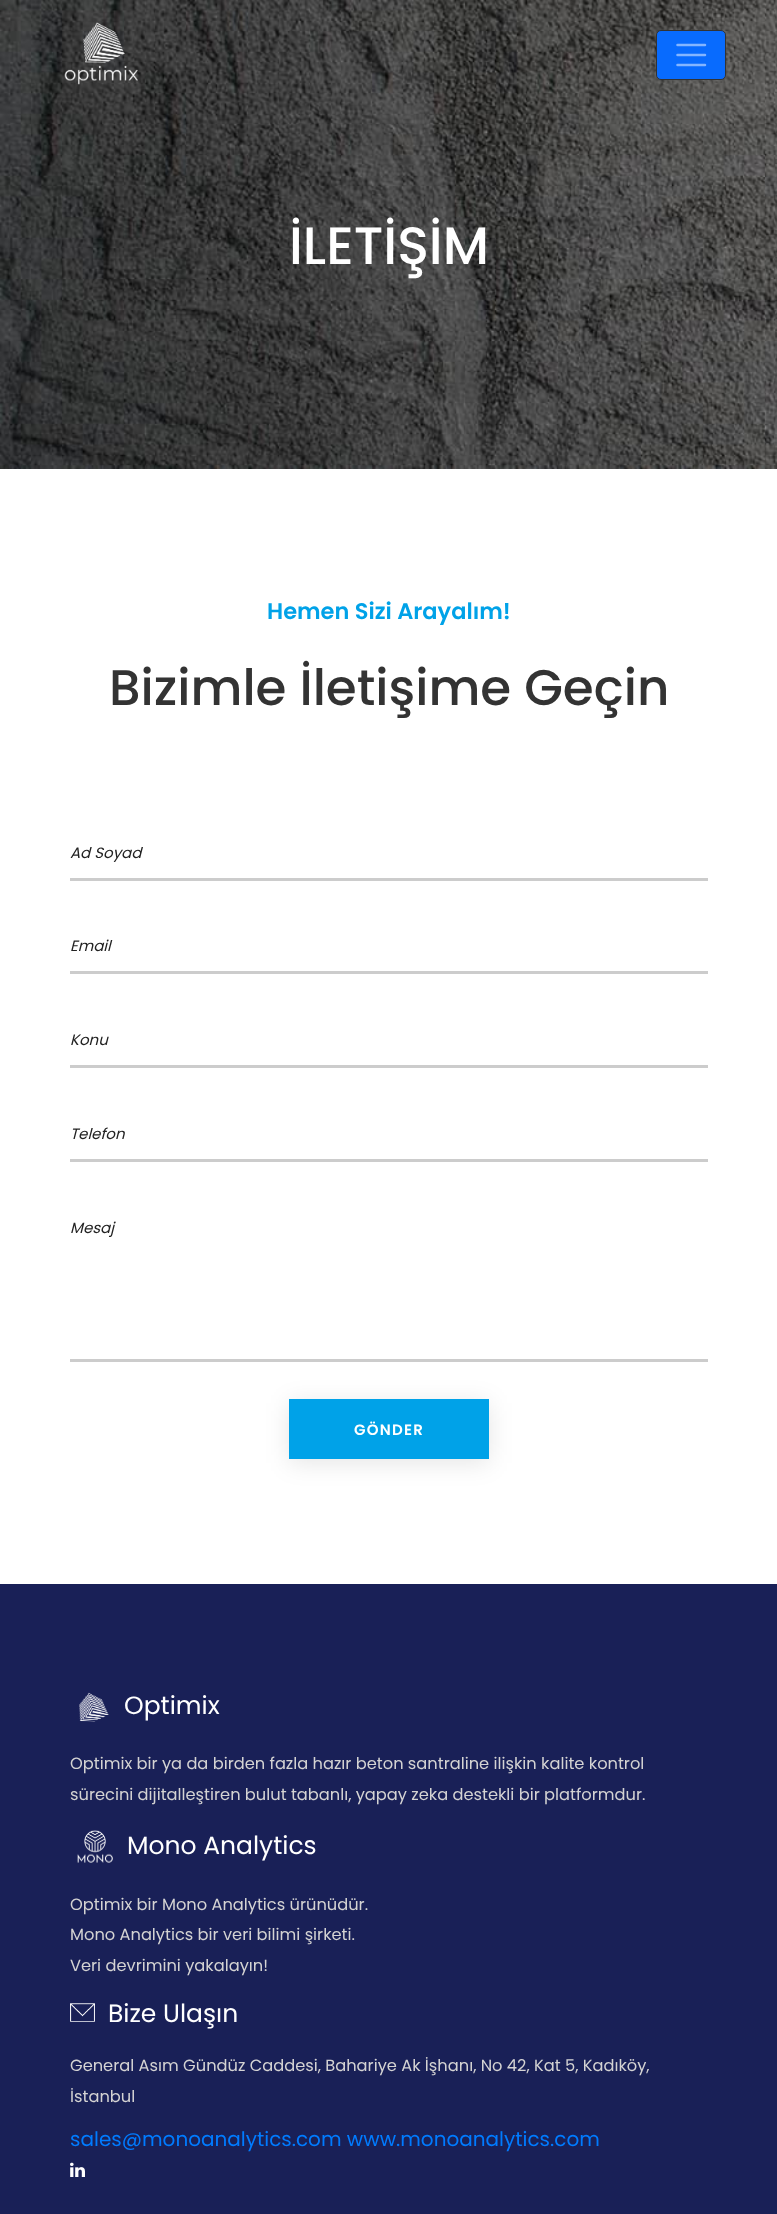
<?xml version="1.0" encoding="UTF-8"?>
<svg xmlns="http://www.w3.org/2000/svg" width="777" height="2214">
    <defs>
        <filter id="blur1" x="-50%" y="-200%" width="200%" height="500%"><feGaussianBlur stdDeviation="12.5"/></filter>
    </defs>
    <rect width="100%" height="100%" fill="#FFFFFF"/>
    <image x="0" y="0" width="777" height="469" href="img_02.png"/>
    <image x="64" y="22" width="74" height="63" href="img_01.png"/>
    <rect x="656.5" y="30.5" width="69" height="49" rx="4.5" fill="#086BFE" stroke="#333333"/>
    <path d="M 677.5 45 H 705 M 677.5 55 H 705 M 677.5 65 H 705" fill="none" stroke="#84B5FF" stroke-width="2.5" stroke-linecap="round"/>
    <text x="289" y="264" font-family="Poppins" font-size="52.5" font-weight="500" fill="#FFFFFF">İLETİŞİM</text>
    <text x="267" y="619" font-family="Poppins" font-size="22.5" font-weight="600" fill="#00A2E8">Hemen Sizi Arayalım!</text>
    <text x="109" y="705" font-family="Poppins" font-size="50" font-weight="500" fill="#333333">Bizimle İletişime Geçin</text>
    <text x="70" y="858" font-family="Poppins" font-size="15" font-style="italic" fill="#222222">Ad Soyad</text>
    <rect x="70" y="878" width="638" height="3" fill="#CCCCCC"/>
    <text x="70" y="951" font-family="Poppins" font-size="15" font-style="italic" fill="#222222">Email</text>
    <rect x="70" y="971" width="638" height="3" fill="#CCCCCC"/>
    <text x="70" y="1045" font-family="Poppins" font-size="15" font-style="italic" fill="#222222">Konu</text>
    <rect x="70" y="1065" width="638" height="3" fill="#CCCCCC"/>
    <text x="70" y="1139" font-family="Poppins" font-size="15" font-style="italic" fill="#222222">Telefon</text>
    <rect x="70" y="1159" width="638" height="3" fill="#CCCCCC"/>
    <text x="70" y="1233" font-family="Poppins" font-size="15" font-style="italic" fill="#222222">Mesaj</text>
    <rect x="70" y="1359" width="638" height="3" fill="#CCCCCC"/>
    <rect x="289" y="1403" width="200" height="60" fill="#000000" fill-opacity="0.1" filter="url(#blur1)"/>
    <rect x="289" y="1399" width="200" height="60" fill="#00A2E8"/>
    <text x="354" y="1435" font-family="Poppins" font-size="15" font-weight="600" letter-spacing="1.25" fill="#FFFFFF">GÖNDER</text>
    <rect x="0" y="1584" width="777" height="630" fill="#192057"/>
    <image x="79" y="1692" width="30" height="30" href="img_03.png"/>
    <text x="124" y="1714" font-family="Poppins" font-size="25" fill="#FFFFFF">Optimix</text>
    <text font-family="Poppins" font-size="16.25" fill="#D4D3D3">
        <tspan x="70" y="1769">Optimix bir ya da birden fazla hazır beton santraline ilişkin kalite kontrol</tspan>
        <tspan x="70" y="1800">sürecini dijitalleştiren bulut tabanlı, yapay zeka destekli bir platformdur.</tspan>
    </text>
    <image x="77" y="1830" width="36" height="33" href="img_04.png"/>
    <text x="127" y="1854" font-family="Poppins" font-size="25" fill="#FFFFFF">Mono Analytics</text>
    <text font-family="Poppins" font-size="16.25" fill="#D4D3D3">
        <tspan x="70" y="1910">Optimix bir Mono Analytics ürünüdür.</tspan>
        <tspan x="70" y="1940">Mono Analytics bir veri bilimi şirketi.</tspan>
        <tspan x="70" y="1971">Veri devrimini yakalayın!</tspan>
    </text>
    <image x="70" y="2003" width="25" height="19" href="img_05.png"/>
    <text x="108" y="2022" font-family="Poppins" font-size="25" fill="#FFFFFF">Bize Ulaşın</text>
    <text font-family="Poppins" font-size="16.25" fill="#D4D3D3">
        <tspan x="70" y="2071">General Asım Gündüz Caddesi, Bahariye Ak İşhanı, No 42, Kat 5, Kadıköy,</tspan>
        <tspan x="70" y="2102">İstanbul</tspan>
    </text>
    <text x="70" y="2146" font-family="Poppins" font-size="20" fill="#007BFF">sales@monoanalytics.com www.monoanalytics.com</text>
    <image x="70" y="2162" width="15" height="15" href="img_06.png"/>
</svg>
